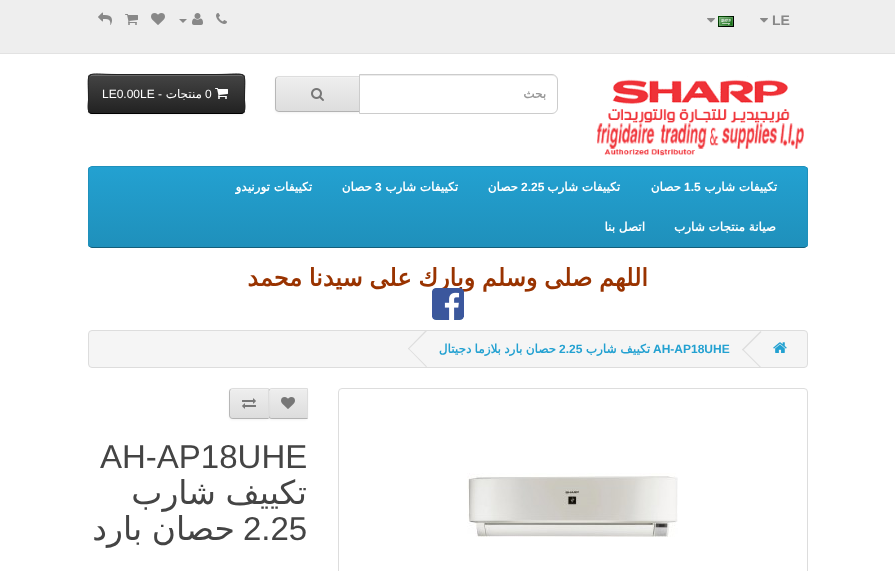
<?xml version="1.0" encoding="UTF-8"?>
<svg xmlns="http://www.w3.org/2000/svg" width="895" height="571">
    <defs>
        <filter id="blur1" x="-50%" y="-200%" width="200%" height="500%"><feGaussianBlur stdDeviation="1"/></filter>
        <clipPath id="clip1"><path d="M 279 76 H 360 V 112 H 279 C 277 112 275 110 275 108 V 80 C 275 78 277 76 279 76 Z"/></clipPath>
        <linearGradient id="g1" gradientUnits="userSpaceOnUse" x1="318" y1="77" x2="318" y2="111"><stop offset="0" stop-color="#EEEEEE"/><stop offset="1" stop-color="#DDDDDD"/></linearGradient>
        <clipPath id="clip2"><rect x="88" y="74" width="157" height="40" rx="4"/></clipPath>
        <linearGradient id="g2" gradientUnits="userSpaceOnUse" x1="167" y1="75" x2="167" y2="113"><stop offset="0" stop-color="#444444"/><stop offset="1" stop-color="#222222"/></linearGradient>
        <clipPath id="clip3"><rect x="88" y="166" width="720" height="82" rx="4"/></clipPath>
        <linearGradient id="g3" gradientUnits="userSpaceOnUse" x1="448" y1="167" x2="448" y2="247"><stop offset="0" stop-color="#23A1D1"/><stop offset="1" stop-color="#1F90BB"/></linearGradient>
        <linearGradient id="g4" gradientUnits="userSpaceOnUse" x1="288" y1="389" x2="288" y2="418"><stop offset="0" stop-color="#EEEEEE"/><stop offset="1" stop-color="#DDDDDD"/></linearGradient>
        <clipPath id="clip4"><path d="M 233 388 H 269 V 419 H 233 C 231 419 229 417 229 415 V 392 C 229 390 231 388 233 388 Z"/></clipPath>
        <linearGradient id="g5" gradientUnits="userSpaceOnUse" x1="249" y1="389" x2="249" y2="418"><stop offset="0" stop-color="#EEEEEE"/><stop offset="1" stop-color="#DDDDDD"/></linearGradient>
    </defs>
    <rect width="100%" height="100%" fill="#FFFFFF"/>
    <rect x="0" y="0" width="895" height="53" fill="#EEEEEE"/>
    <rect x="0" y="53" width="895" height="1" fill="#E2E2E2"/>
    <text x="772" y="25" font-family="Liberation Sans" font-size="14" font-weight="700" fill="#888888">LE</text>
    <image x="760" y="18" width="8" height="5" href="img_01.png"/>
    <image x="718" y="16" width="16" height="11" href="img_02.png"/>
    <image x="707" y="18" width="8" height="5" href="img_01.png"/>
    <image x="216" y="13" width="11" height="11" href="img_03.png"/>
    <image x="192" y="13" width="11" height="12" href="img_04.png"/>
    <path d="M 179 19 H 187 L 183 23 Z" fill="#888888"/>
    <image x="151" y="13" width="14" height="12" href="img_05.png"/>
    <image x="125" y="14" width="13" height="11" href="img_06.png"/>
    <image x="98" y="12" width="14" height="13" href="img_07.png"/>
    <image x="597" y="76" width="207" height="80" href="img_08.png"/>
    <rect x="275" y="77" width="85" height="36" rx="4" fill="#000000" fill-opacity="0.05" filter="url(#blur1)"/>
    <path d="M 279 76 H 360 V 112 H 279 C 277 112 275 110 275 108 V 80 C 275 78 277 76 279 76 Z" fill="#E7E7E7"/>
    <g clip-path="url(#clip1)">
        <rect x="275" y="77" width="84" height="34" fill="url(#g1)"/>
    </g>
    <path d="M 279 78 H 359 V 77 H 279 C 277 77 276 78 276 80 V 81 C 276 79 277 78 279 78 Z" fill="#F1F1F1"/>
    <path d="M 279 76 L 276 77 L 277 78 L 278 77 H 359 L 360 76 Z" fill="#DDDDDD"/>
    <path d="M 360 112 L 359 111 H 278 L 277 110 L 276 111 L 279 112 Z" fill="#B3B3B3"/>
    <path d="M 359 74 H 552 C 555.5 74 558 76.5 558 80 V 108 C 558 111.5 555.5 114 552 114 H 359 Z" fill="#FFFFFF"/>
    <path d="M 360 76 H 552 C 555 76 557 78 557 81 C 557 78 556 76 553 75 H 360 Z" fill="#ECECEC"/>
    <path d="M 359.5 74.5 H 552 C 555 74.5 557.5 77 557.5 80 V 108 C 557.5 111 555 113.5 552 113.5 H 359.5 Z" fill="none" stroke="#CCCCCC"/>
    <text x="546" y="98" font-family="DejaVu Sans" font-size="12" font-weight="700" direction="rtl" fill="#999999">بحث</text>
    <path d="M 275 80 V 108 C 275 109 275.5 110 276 111 L 277 110 C 276 110 276 109 276 108 V 80 C 276 79 276 78 277 78 L 276 77 C 275.5 78 275 79 275 80 Z" fill="#B7B7B7"/>
    <image x="311" y="88" width="13" height="13" href="img_09.png"/>
    <rect x="88" y="75" width="157" height="40" rx="4" fill="#000000" fill-opacity="0.05" filter="url(#blur1)"/>
    <rect x="88" y="74" width="157" height="40" rx="4" fill="#363636"/>
    <g clip-path="url(#clip2)">
        <rect x="88" y="75" width="157" height="38" fill="url(#g2)"/>
    </g>
    <path d="M 92 76 H 241 C 243 76 244 77 244 79 C 244 77 244 76 242 75 H 117 C 109 75 89 70 89 79 C 89 77 90 76 92 76 Z" fill="#FFFFFF" fill-opacity="0.2"/>
    <path d="M 243.5 112.5 C 243 113 242 113.5 241 113.5 H 92 C 91 113.5 90 113 89.5 112.5" fill="none" stroke="#000000"/>
    <path d="M 89.5 112.5 C 87 110 88.5 102 88.5 99.5 C 88.5 68 83 74.5 117 74.5 H 216 C 250 74.5 244.5 68 244.5 99.5 C 244.5 102 246 110 243.5 112.5" fill="none" stroke="#222222"/>
    <image x="215" y="88" width="13" height="11" href="img_10.png"/>
    <text x="205" y="98" font-family="Liberation Sans" font-size="12" fill="#FFFFFF">0</text>
    <text x="202" y="98" font-family="DejaVu Sans" font-size="12" direction="rtl" fill="#FFFFFF">منتجات</text>
    <text x="162" y="98" font-family="Liberation Sans" font-size="12" direction="rtl" fill="#FFFFFF">-</text>
    <text x="102" y="98" font-family="Liberation Sans" font-size="12" fill="#FFFFFF">LE0.00LE</text>
    <g clip-path="url(#clip3)">
        <rect x="88" y="167" width="720" height="80" fill="url(#g3)"/>
    </g>
    <path d="M 806.5 246.5 C 806 247 805 247.5 804 247.5 H 92 C 91 247.5 90 247 89.5 246.5" fill="none" stroke="#145E7A"/>
    <path d="M 89.5 246.5 C 89 246 88.5 245 88.5 244 V 170 C 88.5 169 89 168 89.5 167.5 C 90 167 91 166.5 92 166.5 H 804 C 805 166.5 806 167 806.5 167.5 C 807 168 807.5 169 807.5 170 V 244 C 807.5 245 807 246 806.5 246.5" fill="none" stroke="#1F90BB"/>
    <text x="777" y="191" font-family="DejaVu Sans" font-size="12" font-weight="700" direction="rtl" fill="#FFFFFF">تكييفات شارب</text>
    <text x="684" y="191" font-family="Liberation Sans" font-size="12" font-weight="700" fill="#FFFFFF">1.5</text>
    <text x="681" y="191" font-family="DejaVu Sans" font-size="12" font-weight="700" direction="rtl" fill="#FFFFFF">حصان</text>
    <text x="620" y="191" font-family="DejaVu Sans" font-size="12" font-weight="700" direction="rtl" fill="#FFFFFF">تكييفات شارب</text>
    <text x="521" y="191" font-family="Liberation Sans" font-size="12" font-weight="700" fill="#FFFFFF">2.25</text>
    <text x="518" y="191" font-family="DejaVu Sans" font-size="12" font-weight="700" direction="rtl" fill="#FFFFFF">حصان</text>
    <text x="458" y="191" font-family="DejaVu Sans" font-size="12" font-weight="700" direction="rtl" fill="#FFFFFF">تكييفات شارب</text>
    <text x="375" y="191" font-family="Liberation Sans" font-size="12" font-weight="700" fill="#FFFFFF">3</text>
    <text x="372" y="191" font-family="DejaVu Sans" font-size="12" font-weight="700" direction="rtl" fill="#FFFFFF">حصان</text>
    <text x="312" y="191" font-family="DejaVu Sans" font-size="12" font-weight="700" direction="rtl" fill="#FFFFFF">تكييفات تورنيدو</text>
    <text x="776" y="231" font-family="DejaVu Sans" font-size="12" font-weight="700" direction="rtl" fill="#FFFFFF">صيانة منتجات شارب</text>
    <text x="645" y="231" font-family="DejaVu Sans" font-size="12" font-weight="700" direction="rtl" fill="#FFFFFF">اتصل بنا</text>
    <text x="648" y="286" word-spacing="-1" font-family="DejaVu Sans" font-size="24" font-weight="700" direction="rtl" fill="#993300">اللهم صلى وسلم وبارك على سيدنا محمد</text>
    <image x="432" y="288" width="32" height="32" href="img_11.png"/>
    <rect x="88.5" y="330.5" width="719" height="37" rx="3.5" fill="#F5F5F5" stroke="#DDDDDD"/>
    <image x="773" y="342" width="14" height="11" href="img_12.png"/>
    <path d="M 743 349 L 761.5 367.5 L 760.5 368 L 742 349.5 Z" fill="#DDDDDD"/>
    <path d="M 760.5 331 L 761.5 332 L 743 350.5 L 742 349.5 Z" fill="#DDDDDD"/>
    <text x="653" y="353" font-family="Liberation Sans" font-size="12" font-weight="700" fill="#23A1D1">AH-AP18UHE</text>
    <text x="650" y="353" font-family="DejaVu Sans" font-size="12" font-weight="700" direction="rtl" fill="#23A1D1">تكييف شارب</text>
    <text x="559" y="353" font-family="Liberation Sans" font-size="12" font-weight="700" fill="#23A1D1">2.25</text>
    <text x="556" y="353" word-spacing="-0.5" font-family="DejaVu Sans" font-size="12" font-weight="700" direction="rtl" fill="#23A1D1">حصان بارد بلازما دجيتال</text>
    <path d="M 408.5 348 L 427 366.5 L 426 367 L 408 348.5 Z" fill="#DDDDDD"/>
    <path d="M 426 330 L 427 331 L 408.5 349.5 L 408 348.5 Z" fill="#DDDDDD"/>
    <rect x="338.5" y="388.5" width="469" height="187" rx="3.5" fill="none" stroke="#DDDDDD"/>
    <image x="467" y="473" width="211" height="64" href="img_13.png"/>
    <rect x="268" y="389" width="40" height="31" rx="4" fill="#000000" fill-opacity="0.05" filter="url(#blur1)"/>
    <rect x="269" y="389" width="38" height="29" fill="url(#g4)"/>
    <path d="M 272 390 H 307 V 389 H 272 C 270.5 389 269 390.5 269 392 V 393 C 269 391 270 390 272 390 Z" fill="#F1F1F1"/>
    <path d="M 272 388 C 271 388 270 388.5 269 389 L 270 390 C 270 389 271 389 272 389 H 307 L 308 388 Z" fill="#DDDDDD"/>
    <path d="M 308 388 L 307 389 V 418 L 308 419 Z" fill="#DDDDDD"/>
    <path d="M 308 419 L 307 418 H 272 C 271 418 270 418 270 417 L 269 418 C 270 418.5 271 419 272 419 Z" fill="#B3B3B3"/>
    <path d="M 268 392 V 415 C 268 416 268.5 417 269 418 L 270 417 C 269 417 269 416 269 415 V 392 C 269 391 269 390 270 390 L 269 389 C 268.5 390 268 391 268 392 Z" fill="#B7B7B7"/>
    <image x="281" y="397" width="14" height="12" href="img_14.png"/>
    <rect x="229" y="389" width="40" height="31" rx="4" fill="#000000" fill-opacity="0.05" filter="url(#blur1)"/>
    <g clip-path="url(#clip4)">
        <rect x="229" y="389" width="39" height="29" fill="url(#g5)"/>
    </g>
    <path d="M 233 390 H 268 V 389 H 233 C 231.5 389 230 390.5 230 392 V 393 C 230 391 231 390 233 390 Z" fill="#F1F1F1"/>
    <path d="M 233 388 C 232 388 231 388.5 230 389 L 231 390 C 231 389 232 389 233 389 H 268 L 269 388 Z" fill="#DDDDDD"/>
    <path d="M 269 388 L 268 389 V 418 L 269 419 Z" fill="#DDDDDD"/>
    <path d="M 269 419 L 268 418 H 233 C 232 418 231 418 231 417 L 230 418 C 231 418.5 232 419 233 419 Z" fill="#B3B3B3"/>
    <path d="M 229 392 V 415 C 229 416 229.5 417 230 418 L 231 417 C 230 417 230 416 230 415 V 392 C 230 391 230 390 231 390 L 230 389 C 229.5 390 229 391 229 392 Z" fill="#B7B7B7"/>
    <image x="242" y="398" width="14" height="11" href="img_15.png"/>
    <text x="100" y="468" font-family="Liberation Sans" font-size="33" fill="#444444">AH-AP18UHE</text>
    <text x="307" y="504" word-spacing="-1" font-family="DejaVu Sans" font-size="33" direction="rtl" fill="#444444">تكييف شارب</text>
    <text x="243" y="540" font-family="Liberation Sans" font-size="33" fill="#444444">2.25</text>
    <text x="235" y="540" word-spacing="-1" font-family="DejaVu Sans" font-size="33" direction="rtl" fill="#444444">حصان بارد</text>
</svg>
